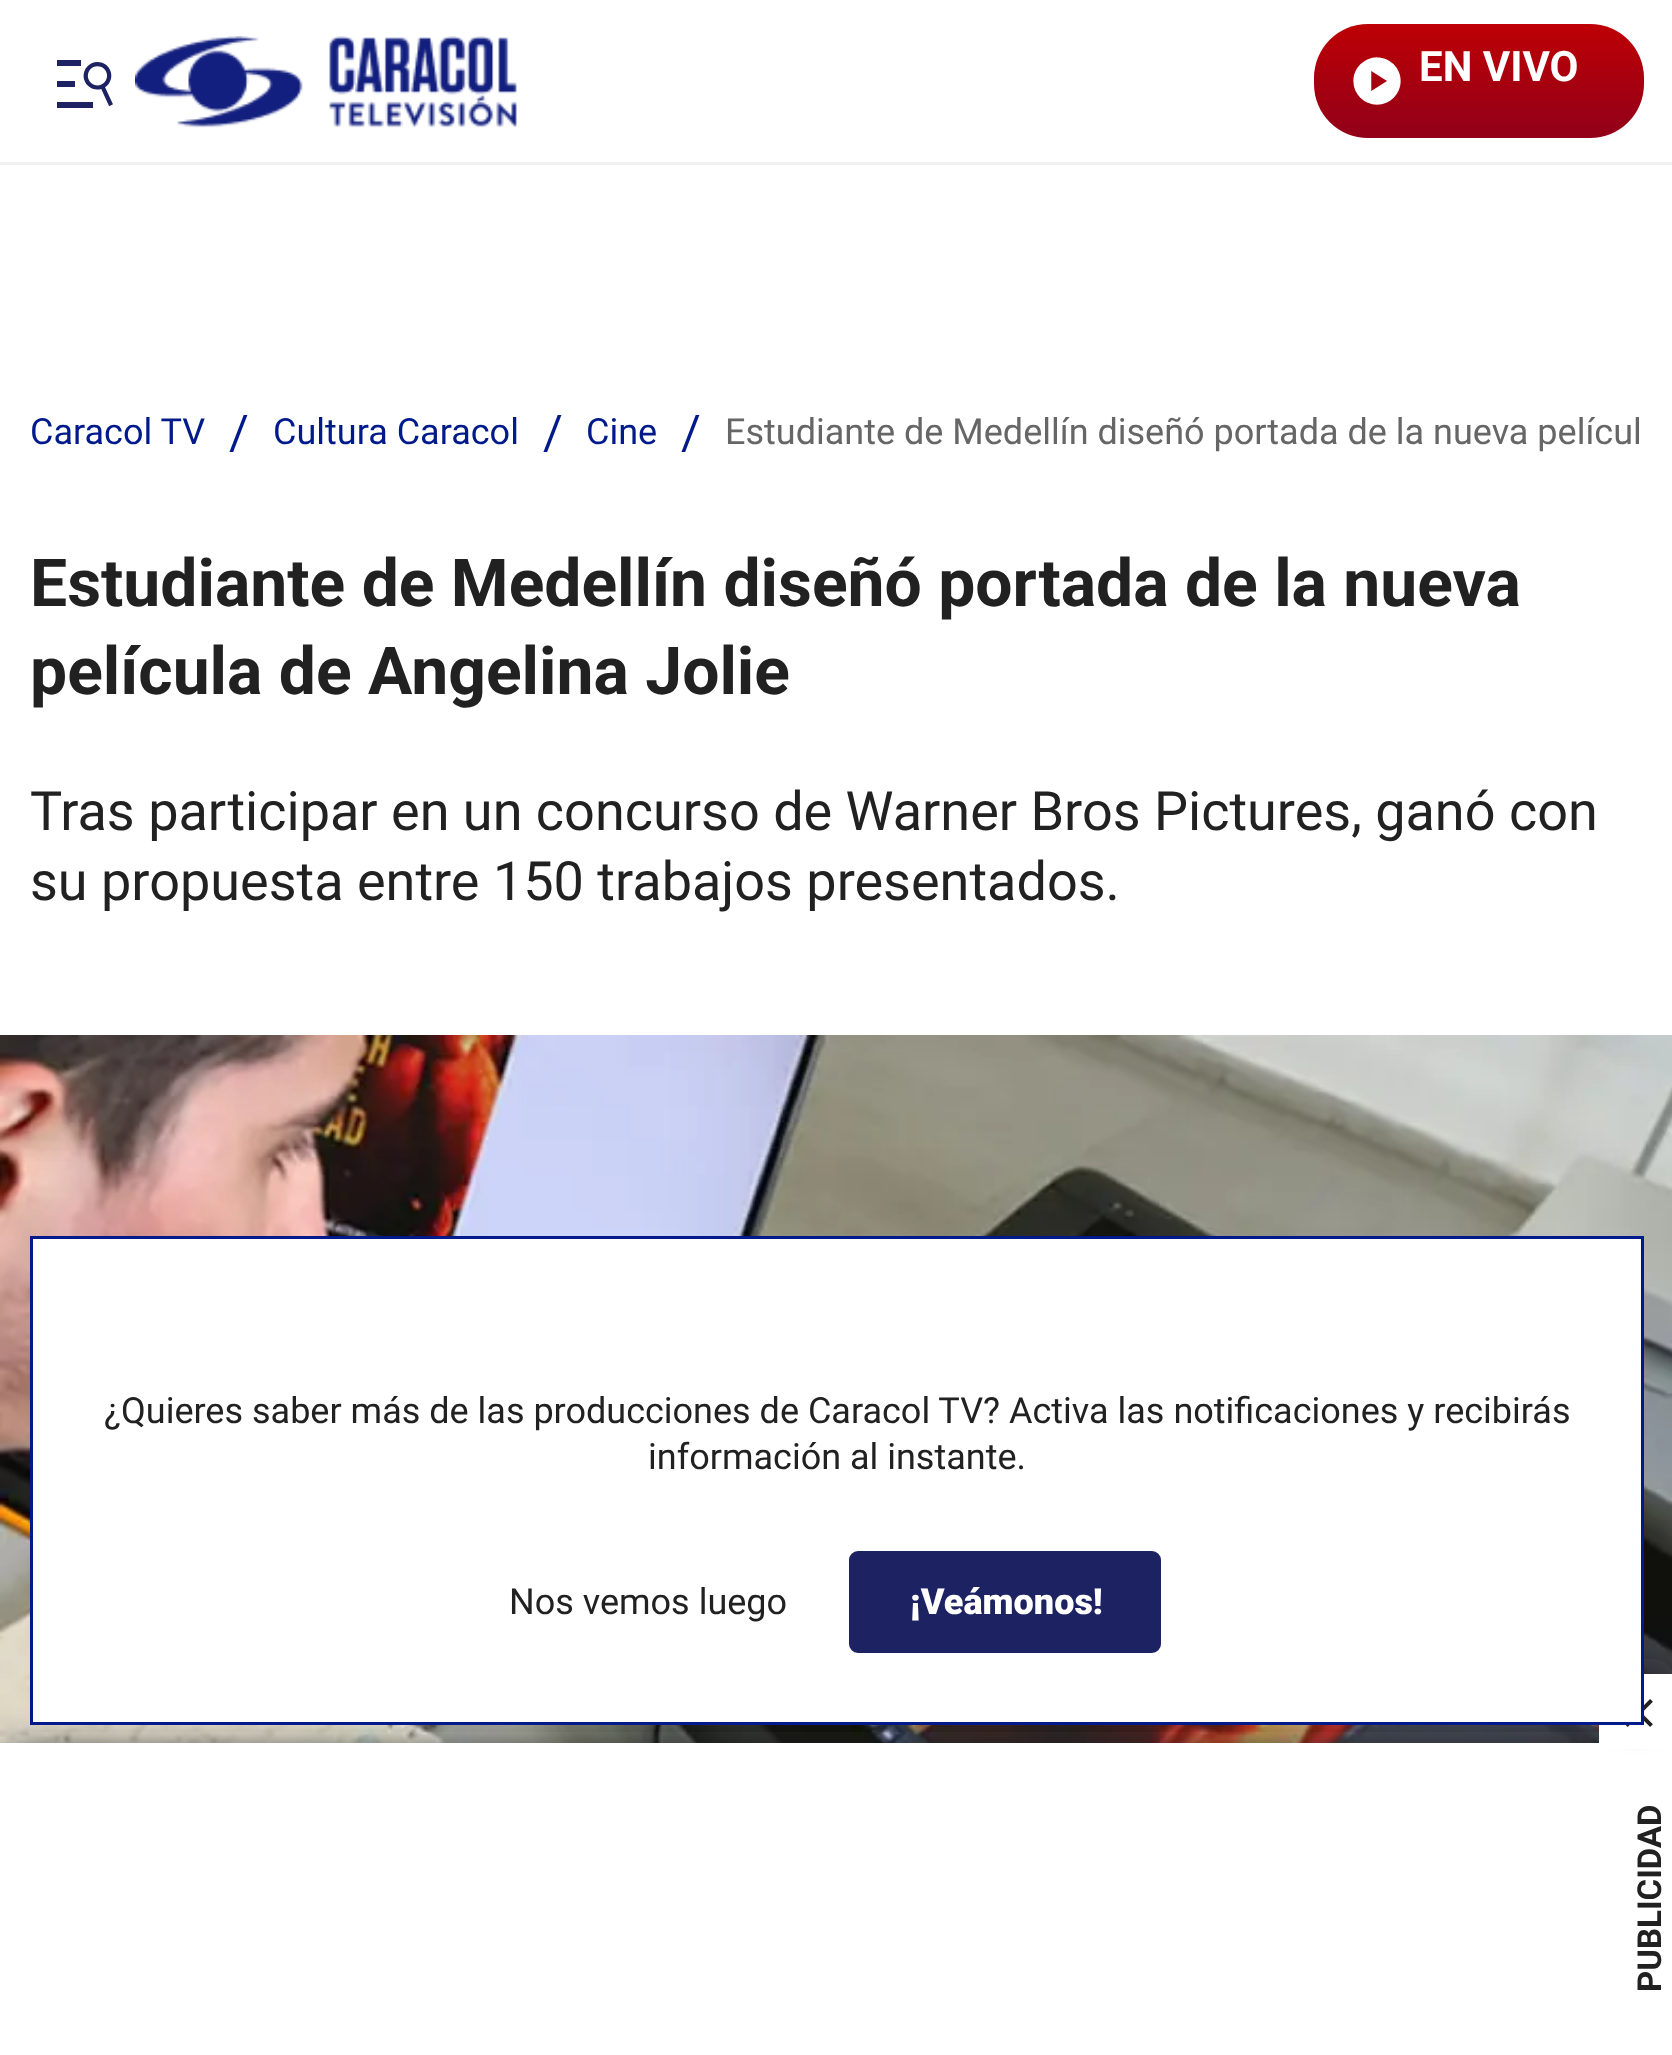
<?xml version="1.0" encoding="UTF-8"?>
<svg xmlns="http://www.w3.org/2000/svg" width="1672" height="2055">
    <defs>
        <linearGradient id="g1" gradientUnits="userSpaceOnUse" x1="1479" y1="24" x2="1479" y2="138"><stop offset="0" stop-color="#BD0005"/><stop offset="1" stop-color="#910019"/></linearGradient>
        <filter id="blur1" x="-50%" y="-200%" width="200%" height="500%"><feGaussianBlur stdDeviation="18"/></filter>
        <filter id="blur2" x="-50%" y="-200%" width="200%" height="500%"><feGaussianBlur stdDeviation="9"/></filter>
    </defs>
    <rect width="100%" height="100%" fill="#FFFFFF"/>
    <rect x="0" y="162" width="1672" height="3" fill="#F1F1F1"/>
    <image x="57" y="60" width="56" height="48" href="img_01.png"/>
    <image x="135" y="36" width="382" height="92" href="img_02.png"/>
    <rect x="1314" y="24" width="330" height="114" rx="54" fill="url(#g1)"/>
    <image x="1353" y="57" width="48" height="48" href="img_03.png"/>
    <text x="1419" y="81" font-family="Roboto" font-size="42" font-weight="700" fill="#FFFFFF">EN VIVO</text>
    <text x="30" y="444" font-family="Roboto" font-size="36" fill="#00198B">Caracol TV</text>
    <text x="229" y="449" font-family="Roboto" font-size="48" fill="#00198B">/</text>
    <text x="273" y="444" font-family="Roboto" font-size="36" fill="#00198B">Cultura Caracol</text>
    <text x="543" y="449" font-family="Roboto" font-size="48" fill="#00198B">/</text>
    <text x="586" y="444" font-family="Roboto" font-size="36" fill="#00198B">Cine</text>
    <text x="681" y="449" font-family="Roboto" font-size="48" fill="#00198B">/</text>
    <text x="725" y="444" font-family="Roboto" font-size="36" fill="#666666">Estudiante de Medellín diseñó portada de la nueva películ</text>
    <text font-family="Roboto" font-size="66" font-weight="700" fill="#212121">
        <tspan x="30" y="606">Estudiante de Medellín diseñó portada de la nueva</tspan>
        <tspan x="30" y="694">película de Angelina Jolie</tspan>
    </text>
    <text font-family="Roboto" font-size="54" fill="#212121">
        <tspan x="30" y="830">Tras participar en un concurso de Warner Bros Pictures, ganó con</tspan>
        <tspan x="30" y="900">su propuesta entre 150 trabajos presentados.</tspan>
    </text>
    <image x="0" y="1035" width="1672" height="708" href="img_04.png"/>
    <rect x="9" y="1752" width="1656" height="294" fill="#212121" filter="url(#blur1)"/>
    <rect x="0" y="1743" width="1672" height="312" fill="#FFFFFF"/>
    <rect x="1599" y="1659" width="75" height="75" rx="21" fill="#212121" fill-opacity="0.3" filter="url(#blur2)"/>
    <rect x="1599" y="1674" width="73" height="75" fill="#FFFFFF"/>
    <image x="1625" y="1699" width="28" height="28" href="img_05.png"/>
    <rect x="31.5" y="1237.5" width="1611" height="486" fill="#FFFFFF" stroke="#00198B" stroke-width="3"/>
    <text x="104" y="1423" font-family="Roboto" font-size="36" fill="#212121">¿Quieres saber más de las producciones de Caracol TV? Activa las notificaciones y recibirás</text>
    <text x="648" y="1469" font-family="Roboto" font-size="36" fill="#212121">información al instante.</text>
    <text x="509" y="1614" font-family="Roboto" font-size="36" fill="#212121">Nos vemos luego</text>
    <rect x="847.5" y="1549.5" width="315" height="105" rx="10.5" fill="#1D2362" stroke="#FFFFFF" stroke-width="3"/>
    <text x="910" y="1614" font-family="Roboto" font-size="36" font-weight="900" fill="#FFFFFF">¡Veámonos!</text>
    <text x="1661" y="1992" transform="rotate(-90 1661 1992)" font-family="Roboto" font-size="33" font-weight="700" fill="#212121">PUBLICIDAD</text>
</svg>
